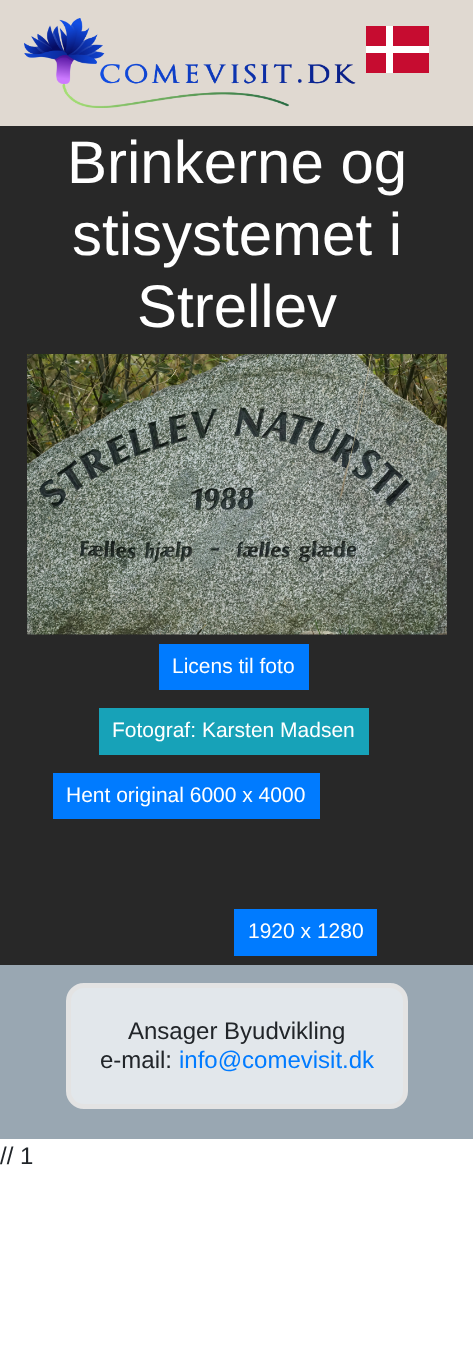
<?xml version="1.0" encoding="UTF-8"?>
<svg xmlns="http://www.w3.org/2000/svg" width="473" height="1364">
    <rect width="100%" height="100%" fill="#FFFFFF"/>
    <rect x="0" y="0" width="473" height="126" fill="#E0D9D1"/>
    <image x="24" y="18" width="332" height="90" href="img_01.png"/>
    <rect x="366" y="26" width="63" height="47" fill="#C60C30"/>
    <path d="M 366 46 H 386 V 26 H 393 V 46 H 429 V 53 H 393 V 73 H 386 V 53 H 366 Z" fill="#FFFFFF"/>
    <rect x="0" y="126" width="473" height="839" fill="#282828"/>
    <text x="67" y="183" font-family="Liberation Sans" font-size="60" fill="#FFFFFF">Brinkerne og</text>
    <text x="72" y="255" font-family="Liberation Sans" font-size="60" fill="#FFFFFF">stisystemet i</text>
    <text x="137" y="327" font-family="Liberation Sans" font-size="60" fill="#FFFFFF">Strellev</text>
    <image x="27" y="354" width="420" height="281" href="img_02.png"/>
    <rect x="159" y="644" width="150" height="46" fill="#007BFF"/>
    <text x="172" y="673" font-family="Liberation Sans" font-size="21" fill="#FFFFFF">Licens til foto</text>
    <rect x="99" y="708" width="270" height="47" fill="#17A2B8"/>
    <text x="112" y="737" font-family="Liberation Sans" font-size="21" fill="#FFFFFF">Fotograf: Karsten Madsen</text>
    <rect x="53" y="773" width="267" height="46" fill="#007BFF"/>
    <text x="66" y="802" font-family="Liberation Sans" font-size="21" fill="#FFFFFF">Hent original 6000 x 4000</text>
    <rect x="234" y="909" width="143" height="47" fill="#007BFF"/>
    <text x="248" y="938" font-family="Liberation Sans" font-size="21" fill="#FFFFFF">1920 x 1280</text>
    <rect x="0" y="965" width="473" height="174" fill="#99A7B2"/>
    <rect x="68.5" y="985.5" width="337" height="121" rx="15.5" fill="#E2E7EB" stroke="#E3E3E3" stroke-width="5"/>
    <text x="128" y="1039" font-family="Liberation Sans" font-size="24" fill="#212529">Ansager Byudvikling</text>
    <text x="100" y="1068" font-family="Liberation Sans" font-size="24" fill="#212529">e-mail:</text>
    <text x="179" y="1068" font-family="Liberation Sans" font-size="24" fill="#007BFF">info@comevisit.dk</text>
    <text x="0" y="1164" font-family="Liberation Sans" font-size="24" fill="#212529">// 1</text>
</svg>
